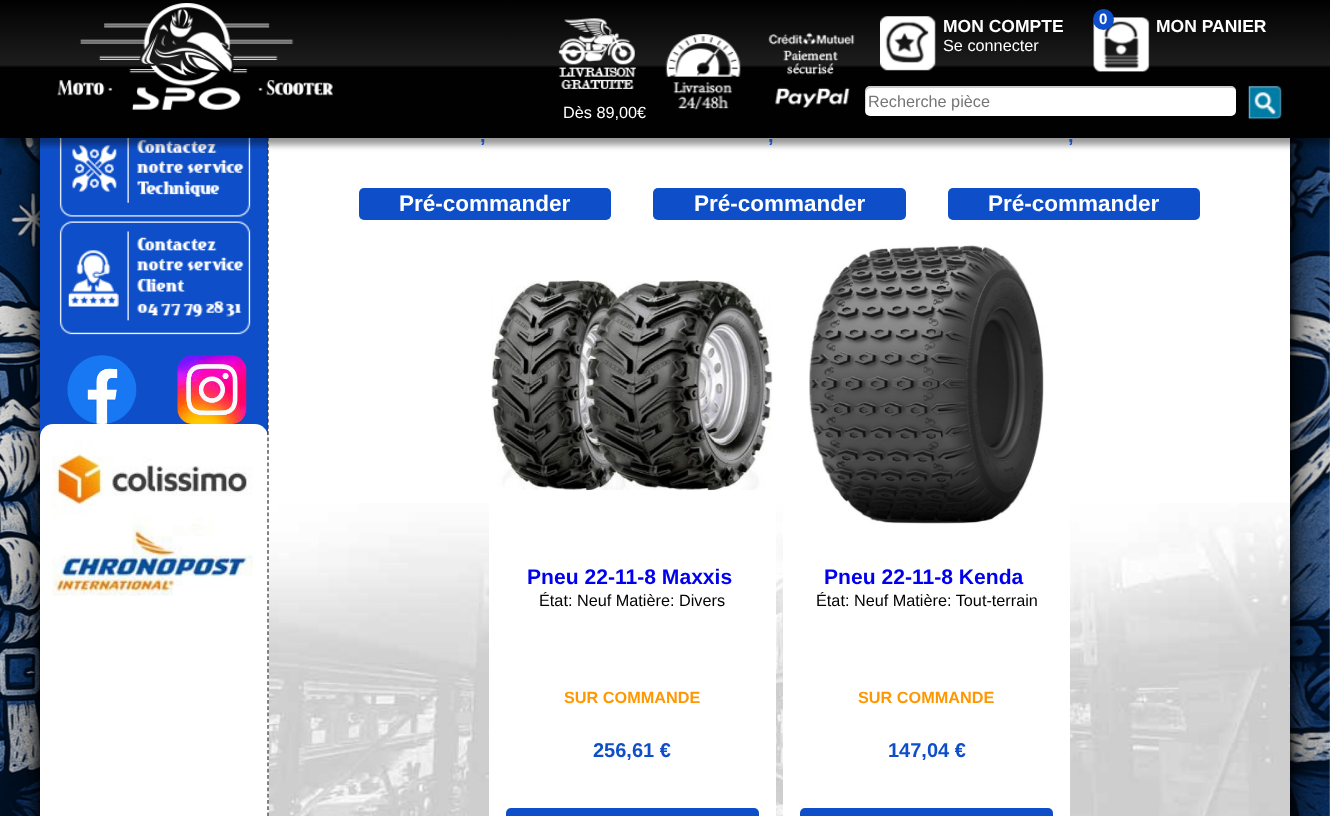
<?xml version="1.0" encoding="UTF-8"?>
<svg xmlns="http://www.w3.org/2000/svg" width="1330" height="816">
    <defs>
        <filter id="blur1" x="-50%" y="-200%" width="200%" height="500%"><feGaussianBlur stdDeviation="3"/></filter>
        <filter id="blur2" x="-50%" y="-200%" width="200%" height="500%"><feGaussianBlur stdDeviation="8"/></filter>
        <filter id="blur3" x="-50%" y="-200%" width="200%" height="500%"><feGaussianBlur stdDeviation="4"/></filter>
        <filter id="blur4" x="-50%" y="-200%" width="200%" height="500%"><feGaussianBlur stdDeviation="19"/></filter>
        <filter id="blur5" x="-50%" y="-200%" width="200%" height="500%"><feGaussianBlur stdDeviation="34.5"/></filter>
        <linearGradient id="g1" gradientUnits="userSpaceOnUse" x1="665" y1="0" x2="665" y2="138"><stop offset="0" stop-color="#010101"/><stop offset="0.47" stop-color="#1D1D1D"/><stop offset="0.49" stop-color="#010101"/></linearGradient>
    </defs>
    <rect width="100%" height="100%" fill="#FFFFFF"/>
    <image x="0" y="138" width="1330" height="678" href="img_01.png"/>
    <rect x="40" y="-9" width="1250" height="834" fill="#000000" fill-opacity="0.09" filter="url(#blur1)"/>
    <rect x="40" y="-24" width="1250" height="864" fill="#000000" fill-opacity="0.62" filter="url(#blur2)"/>
    <rect x="40" y="-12" width="1250" height="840" fill="#000000" fill-opacity="0.62" filter="url(#blur3)"/>
    <rect x="40" y="-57" width="1250" height="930" fill="#000000" fill-opacity="0.62" filter="url(#blur4)"/>
    <rect x="40" y="-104" width="1250" height="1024" fill="#000000" fill-opacity="0.62" filter="url(#blur5)"/>
    <rect x="268" y="138" width="1022" height="678" fill="#FFFFFF"/>
    <rect x="40" y="138" width="228" height="299" fill="#0E4FC9"/>
    <image x="59" y="138" width="192" height="79" href="img_09.png"/>
    <path d="M 53 424 H 255 C 262 424 268 430 268 437 V 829 H 40 V 437 C 40 430 46 424 53 424 Z" fill="#FFFFFF"/>
    <image x="268" y="503" width="1022" height="313" href="img_14.png"/>
    <path d="M 268 -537.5 V 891" fill="none" stroke="#303030" stroke-width="1.2" stroke-dasharray="3.75 2.5"/>
    <rect x="5" y="8" width="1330" height="137" fill="#000000" fill-opacity="0.4" filter="url(#blur1)"/>
    <rect x="0" y="0" width="1330" height="138" fill="url(#g1)"/>
    <image x="57" y="3" width="276" height="107" href="img_02.png"/>
    <image x="880" y="16" width="56" height="55" href="img_03.png"/>
    <text x="943" y="32" font-family="Liberation Sans" font-size="17.5" font-weight="700" fill="#FFFFFF">MON COMPTE</text>
    <text x="943" y="51" font-family="Liberation Sans" font-size="16.25" fill="#FFFFFF">Se connecter</text>
    <image x="1093" y="17" width="57" height="55" href="img_04.png"/>
    <circle cx="1103.5" cy="19.5" r="10.5" fill="#0E4FC9"/>
    <text x="1099" y="24" font-family="Liberation Sans" font-size="15" font-weight="700" fill="#FFFFFF">0</text>
    <text x="1156" y="32" font-family="Liberation Sans" font-size="17.5" font-weight="700" fill="#FFFFFF">MON PANIER</text>
    <rect x="865" y="86" width="371" height="30" rx="5" fill="#FFFFFF"/>
    <path d="M 871 88 H 1232 C 1234 88 1235 89 1236 89 C 1235 87 1233 86 1231 86 H 870 C 867 86 865 88 865 91 V 111 C 865 112 866 114 866 115 C 865 111 866 106 866 102 C 866 97 864 88 871 88 Z" fill="#000000" fill-opacity="0.2"/>
    <text x="868" y="107" font-family="Liberation Sans" font-size="16.25" fill="#757575">Recherche pièce</text>
    <image x="1248" y="86" width="34" height="34" href="img_05.png"/>
    <image x="558" y="18" width="79" height="71" href="img_06.png"/>
    <image x="665" y="34" width="76" height="76" href="img_07.png"/>
    <image x="768" y="32" width="87" height="76" href="img_08.png"/>
    <text x="563" y="118" font-family="Liberation Sans" font-size="16.25" fill="#FFFFFF">Dès 89,00€</text>
    <image x="59" y="221" width="192" height="114" href="img_10.png"/>
    <image x="67" y="355" width="70" height="69" href="img_11.png"/>
    <image x="177" y="355" width="70" height="69" href="img_12.png"/>
    <image x="52" y="437" width="201" height="159" href="img_13.png"/>
    <text x="480" y="142" font-family="Liberation Sans" font-size="20" font-weight="700" fill="#0E4FC9">,</text>
    <rect x="359" y="188" width="252" height="32" rx="5" fill="#0E4FC9"/>
    <text x="399" y="211" font-family="Liberation Sans" font-size="22.5" font-weight="700" fill="#FFFFFF">Pré-commander</text>
    <text x="768" y="142" font-family="Liberation Sans" font-size="20" font-weight="700" fill="#0E4FC9">,</text>
    <rect x="653" y="188" width="253" height="32" rx="5" fill="#0E4FC9"/>
    <text x="694" y="211" font-family="Liberation Sans" font-size="22.5" font-weight="700" fill="#FFFFFF">Pré-commander</text>
    <text x="1068" y="142" font-family="Liberation Sans" font-size="20" font-weight="700" fill="#0E4FC9">,</text>
    <rect x="948" y="188" width="252" height="32" rx="5" fill="#0E4FC9"/>
    <text x="988" y="211" font-family="Liberation Sans" font-size="22.5" font-weight="700" fill="#FFFFFF">Pré-commander</text>
    <rect x="489" y="241" width="287" height="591" rx="16" fill="#FFFFFF"/>
    <image x="491" y="280" width="282" height="211" href="img_15.png"/>
    <text x="527" y="584" font-family="Liberation Sans" font-size="21.1" font-weight="700" fill="#0000EE">Pneu 22-11-8 Maxxis</text>
    <text x="539" y="606" font-family="Liberation Sans" font-size="16.25" fill="#000000">État: Neuf Matière: Divers</text>
    <text x="564" y="703" font-family="Liberation Sans" font-size="16.25" font-weight="700" fill="#FF9800">SUR COMMANDE</text>
    <text x="593" y="757" font-family="Liberation Sans" font-size="20" font-weight="700" fill="#0E4FC9">256,61 €</text>
    <rect x="506" y="808" width="253" height="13" rx="5" fill="#0E4FC9"/>
    <rect x="783" y="241" width="287" height="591" rx="16" fill="#FFFFFF"/>
    <image x="809" y="245" width="235" height="279" href="img_16.png"/>
    <text x="824" y="584" font-family="Liberation Sans" font-size="21.1" font-weight="700" fill="#0000EE">Pneu 22-11-8 Kenda</text>
    <text x="816" y="606" font-family="Liberation Sans" font-size="16.25" fill="#000000">État: Neuf Matière: Tout-terrain</text>
    <text x="858" y="703" font-family="Liberation Sans" font-size="16.25" font-weight="700" fill="#FF9800">SUR COMMANDE</text>
    <text x="888" y="757" font-family="Liberation Sans" font-size="20" font-weight="700" fill="#0E4FC9">147,04 €</text>
    <rect x="800" y="808" width="253" height="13" rx="5" fill="#0E4FC9"/>
</svg>
